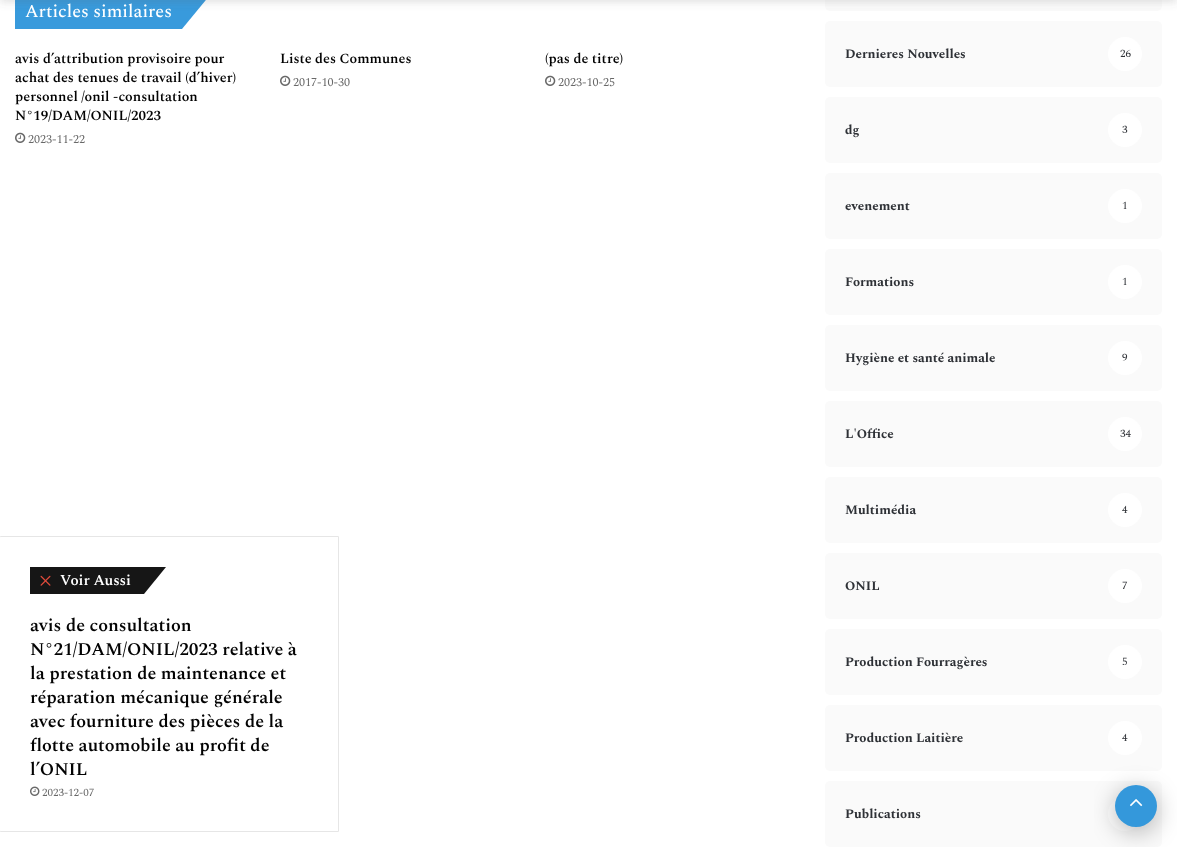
<?xml version="1.0" encoding="UTF-8"?>
<svg xmlns="http://www.w3.org/2000/svg" width="1177" height="847">
    <defs>
        <filter id="blur1" x="-50%" y="-200%" width="200%" height="500%"><feGaussianBlur stdDeviation="4"/></filter>
        <filter id="blur2" x="-50%" y="-200%" width="200%" height="500%"><feGaussianBlur stdDeviation="12.5"/></filter>
    </defs>
    <rect width="100%" height="100%" fill="#FFFFFF"/>
    <rect x="15" y="0" width="74" height="29" fill="#389ADC"/>
    <path d="M 93 -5 H 210 L 182 29 H 65 Z" fill="#389ADC"/>
    <rect x="825" y="-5" width="337" height="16" rx="5" fill="#FAFAFA"/>
    <rect x="0" y="-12" width="1177" height="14" fill="#636363" fill-opacity="0.2" filter="url(#blur1)"/>
    <text x="25" y="17" font-family="Spectral" font-size="18" font-weight="500" fill="#FFFFFF">Articles similaires</text>
    <text font-family="Spectral" font-size="14" font-weight="600" fill="#030303">
        <tspan x="15" y="63">avis d’attribution provisoire pour</tspan>
        <tspan x="15" y="82">achat des tenues de travail (d’hiver)</tspan>
        <tspan x="15" y="101">personnel /onil -consultation</tspan>
        <tspan x="15" y="120">N°19/DAM/ONIL/2023</tspan>
    </text>
    <image x="15" y="132" width="11" height="11" href="img_01.png"/>
    <text x="28" y="143" font-family="Spectral" font-size="12" fill="#686868">2023-11-22</text>
    <text x="280" y="63" font-family="Spectral" font-size="14" font-weight="600" fill="#030303">Liste des Communes</text>
    <image x="280" y="75" width="11" height="11" href="img_01.png"/>
    <text x="293" y="86" font-family="Spectral" font-size="12" fill="#686868">2017-10-30</text>
    <text x="545" y="63" font-family="Spectral" font-size="14" font-weight="600" fill="#030303">(pas de titre)</text>
    <image x="545" y="75" width="11" height="11" href="img_01.png"/>
    <text x="558" y="86" font-family="Spectral" font-size="12" fill="#686868">2023-10-25</text>
    <rect x="825" y="21" width="337" height="66" rx="5" fill="#FAFAFA"/>
    <text x="845" y="58" font-family="Spectral" font-size="13" font-weight="700" fill="#2E3136">Dernieres Nouvelles</text>
    <circle cx="1125" cy="54" r="17" fill="#FFFFFF"/>
    <text x="1120" y="57" font-family="Spectral" font-size="11" fill="#2E3136">26</text>
    <rect x="825" y="97" width="337" height="66" rx="5" fill="#FAFAFA"/>
    <text x="845" y="134" font-family="Spectral" font-size="13" font-weight="700" fill="#2E3136">dg</text>
    <circle cx="1125" cy="130" r="17" fill="#FFFFFF"/>
    <text x="1122" y="133" font-family="Spectral" font-size="11" fill="#2E3136">3</text>
    <rect x="825" y="173" width="337" height="66" rx="5" fill="#FAFAFA"/>
    <text x="845" y="210" font-family="Spectral" font-size="13" font-weight="700" fill="#2E3136">evenement</text>
    <circle cx="1125" cy="206" r="17" fill="#FFFFFF"/>
    <text x="1122" y="209" font-family="Spectral" font-size="11" fill="#2E3136">1</text>
    <rect x="825" y="249" width="337" height="66" rx="5" fill="#FAFAFA"/>
    <text x="845" y="286" font-family="Spectral" font-size="13" font-weight="700" fill="#2E3136">Formations</text>
    <circle cx="1125" cy="282" r="17" fill="#FFFFFF"/>
    <text x="1122" y="285" font-family="Spectral" font-size="11" fill="#2E3136">1</text>
    <rect x="825" y="325" width="337" height="66" rx="5" fill="#FAFAFA"/>
    <text x="845" y="362" font-family="Spectral" font-size="13" font-weight="700" fill="#2E3136">Hygiène et santé animale</text>
    <circle cx="1125" cy="358" r="17" fill="#FFFFFF"/>
    <text x="1122" y="361" font-family="Spectral" font-size="11" fill="#2E3136">9</text>
    <rect x="825" y="401" width="337" height="66" rx="5" fill="#FAFAFA"/>
    <text x="845" y="438" font-family="Spectral" font-size="13" font-weight="700" fill="#2E3136">L'Office</text>
    <circle cx="1125" cy="434" r="17" fill="#FFFFFF"/>
    <text x="1120" y="437" font-family="Spectral" font-size="11" fill="#2E3136">34</text>
    <rect x="825" y="477" width="337" height="66" rx="5" fill="#FAFAFA"/>
    <text x="845" y="514" font-family="Spectral" font-size="13" font-weight="700" fill="#2E3136">Multimédia</text>
    <circle cx="1125" cy="510" r="17" fill="#FFFFFF"/>
    <text x="1122" y="513" font-family="Spectral" font-size="11" fill="#2E3136">4</text>
    <rect x="825" y="553" width="337" height="66" rx="5" fill="#FAFAFA"/>
    <text x="845" y="590" font-family="Spectral" font-size="13" font-weight="700" fill="#2E3136">ONIL</text>
    <circle cx="1125" cy="586" r="17" fill="#FFFFFF"/>
    <text x="1122" y="589" font-family="Spectral" font-size="11" fill="#2E3136">7</text>
    <rect x="825" y="629" width="337" height="66" rx="5" fill="#FAFAFA"/>
    <text x="845" y="666" font-family="Spectral" font-size="13" font-weight="700" fill="#2E3136">Production Fourragères</text>
    <circle cx="1125" cy="662" r="17" fill="#FFFFFF"/>
    <text x="1122" y="665" font-family="Spectral" font-size="11" fill="#2E3136">5</text>
    <rect x="825" y="705" width="337" height="66" rx="5" fill="#FAFAFA"/>
    <text x="845" y="742" font-family="Spectral" font-size="13" font-weight="700" fill="#2E3136">Production Laitière</text>
    <circle cx="1125" cy="738" r="17" fill="#FFFFFF"/>
    <text x="1122" y="741" font-family="Spectral" font-size="11" fill="#2E3136">4</text>
    <rect x="825" y="781" width="337" height="66" rx="5" fill="#FAFAFA"/>
    <text x="845" y="818" font-family="Spectral" font-size="13" font-weight="700" fill="#2E3136">Publications</text>
    <circle cx="1125" cy="814" r="17" fill="#FFFFFF"/>
    <path d="M 1 536.5 H 338.5 V 831.5 H 1 C 0 831.5 -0.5 831 -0.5 830 V 538 C -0.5 537 0 536.5 1 536.5 Z" fill="none" stroke="#E6E6E6"/>
    <rect x="30" y="567" width="59" height="27" fill="#161616"/>
    <path d="M 89 567 H 166 L 144 594 H 66 Z" fill="#161616"/>
    <image x="40" y="575" width="11" height="11" href="img_02.png"/>
    <text x="60" y="585" font-family="Spectral" font-size="15" font-weight="600" fill="#FFFFFF">Voir Aussi</text>
    <text font-family="Spectral" font-size="18" font-weight="600" fill="#030303">
        <tspan x="30" y="631">avis de consultation</tspan>
        <tspan x="30" y="655">N°21/DAM/ONIL/2023 relative à</tspan>
        <tspan x="30" y="679">la prestation de maintenance et</tspan>
        <tspan x="30" y="703">réparation mécanique générale</tspan>
        <tspan x="30" y="727">avec fourniture des pièces de la</tspan>
        <tspan x="30" y="751">flotte automobile au profit de</tspan>
        <tspan x="30" y="775">l’ONIL</tspan>
    </text>
    <image x="30" y="786" width="10" height="10" href="img_03.png"/>
    <text x="42" y="796" font-family="Spectral" font-size="11" fill="#686868">2023-12-07</text>
    <rect x="1115" y="790" width="42" height="42" rx="21" fill="#000000" fill-opacity="0.3" filter="url(#blur2)"/>
    <circle cx="1136" cy="806" r="21" fill="#3498DB"/>
    <image x="1130" y="799" width="13" height="8" href="img_04.png"/>
</svg>
